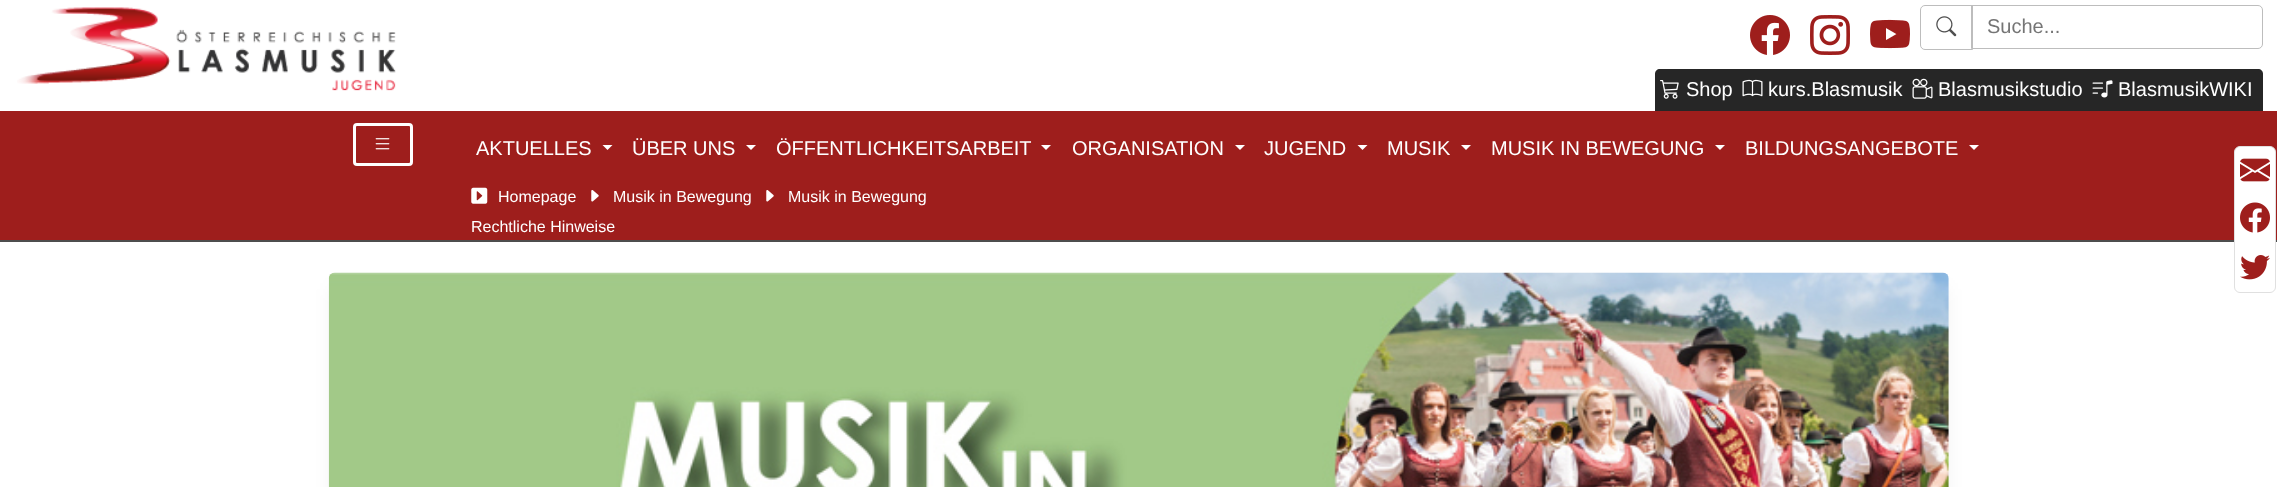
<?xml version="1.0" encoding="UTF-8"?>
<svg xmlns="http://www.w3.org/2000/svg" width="2277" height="487">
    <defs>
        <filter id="blur1" x="-50%" y="-200%" width="200%" height="500%"><feGaussianBlur stdDeviation="9.5"/></filter>
    </defs>
    <rect width="100%" height="100%" fill="#FFFFFF"/>
    <rect x="0" y="240" width="2277" height="2" fill="#4D4D4D"/>
    <image x="17" y="7" width="379" height="84" href="img_01.png"/>
    <image x="1750" y="15" width="40" height="40" href="img_02.png"/>
    <image x="1810" y="15" width="40" height="40" href="img_03.png"/>
    <image x="1870" y="19" width="40" height="30" href="img_04.png"/>
    <path d="M 1925 5.5 H 1972.5 V 49.5 H 1925 C 1922.5 49.5 1920.5 47.5 1920.5 45 V 10 C 1920.5 7.5 1922.5 5.5 1925 5.5 Z" fill="none" stroke="#BDBDBD"/>
    <image x="1936" y="16" width="21" height="21" href="img_05.png"/>
    <path d="M 1971.5 5.5 H 2258 C 2260.5 5.5 2262.5 7.5 2262.5 10 V 44 C 2262.5 46.5 2260.5 48.5 2258 48.5 H 1971.5 Z" fill="none" stroke="#BDBDBD"/>
    <text x="1987" y="33" font-family="Liberation Sans" font-size="20" fill="#757575">Suche...</text>
    <path d="M 1660 69 H 2258 C 2261 69 2263 71 2263 74 V 111 H 1655 V 74 C 1655 71 1657 69 1660 69 Z" fill="#262626"/>
    <image x="1660" y="80" width="19" height="19" href="img_06.png"/>
    <text x="1686" y="96" font-family="Liberation Sans" font-size="20" fill="#FFFFFF">Shop</text>
    <image x="1742" y="79" width="21" height="18" href="img_07.png"/>
    <text x="1768" y="96" font-family="Liberation Sans" font-size="20" fill="#FFFFFF">kurs.Blasmusik</text>
    <image x="1912" y="78" width="21" height="21" href="img_08.png"/>
    <text x="1938" y="96" font-family="Liberation Sans" font-size="20" fill="#FFFFFF">Blasmusikstudio</text>
    <image x="2092" y="80" width="21" height="18" href="img_09.png"/>
    <text x="2118" y="96" font-family="Liberation Sans" font-size="20" fill="#FFFFFF">BlasmusikWIKI</text>
    <rect x="0" y="111" width="2277" height="129" fill="#9E1E1C"/>
    <rect x="354.5" y="124.5" width="57" height="40" rx="2.5" fill="none" stroke="#FFFFFF" stroke-width="3"/>
    <image x="375" y="138" width="15" height="12" href="img_10.png"/>
    <text x="476" y="155" font-family="Liberation Sans" font-size="20" fill="#FFFFFF">AKTUELLES</text>
    <path d="M 602.5 145 H 612.5 L 607.5 150 Z" fill="#FFFFFF"/>
    <text x="632" y="155" font-family="Liberation Sans" font-size="20" fill="#FFFFFF">ÜBER UNS</text>
    <path d="M 746 145 H 756 L 751 150 Z" fill="#FFFFFF"/>
    <text x="776" y="155" font-family="Liberation Sans" font-size="20" fill="#FFFFFF">ÖFFENTLICHKEITSARBEIT</text>
    <path d="M 1041 145 H 1051 L 1046 150 Z" fill="#FFFFFF"/>
    <text x="1072" y="155" font-family="Liberation Sans" font-size="20" fill="#FFFFFF">ORGANISATION</text>
    <path d="M 1235 145 H 1245 L 1240 150 Z" fill="#FFFFFF"/>
    <text x="1264" y="155" font-family="Liberation Sans" font-size="20" fill="#FFFFFF">JUGEND</text>
    <path d="M 1357.5 145 H 1367.5 L 1362.5 150 Z" fill="#FFFFFF"/>
    <text x="1387" y="155" font-family="Liberation Sans" font-size="20" fill="#FFFFFF">MUSIK</text>
    <path d="M 1461 145 H 1471 L 1466 150 Z" fill="#FFFFFF"/>
    <text x="1491" y="155" font-family="Liberation Sans" font-size="20" fill="#FFFFFF">MUSIK IN BEWEGUNG</text>
    <path d="M 1715 145 H 1725 L 1720 150 Z" fill="#FFFFFF"/>
    <text x="1745" y="155" font-family="Liberation Sans" font-size="20" fill="#FFFFFF">BILDUNGSANGEBOTE</text>
    <path d="M 1969 145 H 1979 L 1974 150 Z" fill="#FFFFFF"/>
    <image x="471" y="187" width="17" height="17" href="img_11.png"/>
    <text x="498" y="202" font-family="Liberation Sans" font-size="16" fill="#FFFFFF">Homepage</text>
    <image x="591" y="190" width="8" height="12" href="img_12.png"/>
    <text x="613" y="202" font-family="Liberation Sans" font-size="16" fill="#FFFFFF">Musik in Bewegung</text>
    <image x="766" y="190" width="8" height="12" href="img_12.png"/>
    <text x="788" y="202" font-family="Liberation Sans" font-size="16" fill="#FFFFFF">Musik in Bewegung</text>
    <text x="471" y="232" font-family="Liberation Sans" font-size="16" fill="#FFFFFF">Rechtliche Hinweise</text>
    <rect x="333" y="289" width="1612" height="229" rx="2.5" fill="#000000" fill-opacity="0.07" filter="url(#blur1)"/>
    <image x="328" y="272" width="1621" height="215" href="img_13.png"/>
    <rect x="2234.5" y="146.5" width="41" height="146" rx="5.5" fill="#FFFFFF" stroke="#E0E0E0"/>
    <image x="2240" y="158" width="30" height="24" href="img_14.png"/>
    <image x="2240" y="202" width="30" height="31" href="img_15.png"/>
    <image x="2240" y="255" width="30" height="25" href="img_16.png"/>
</svg>
